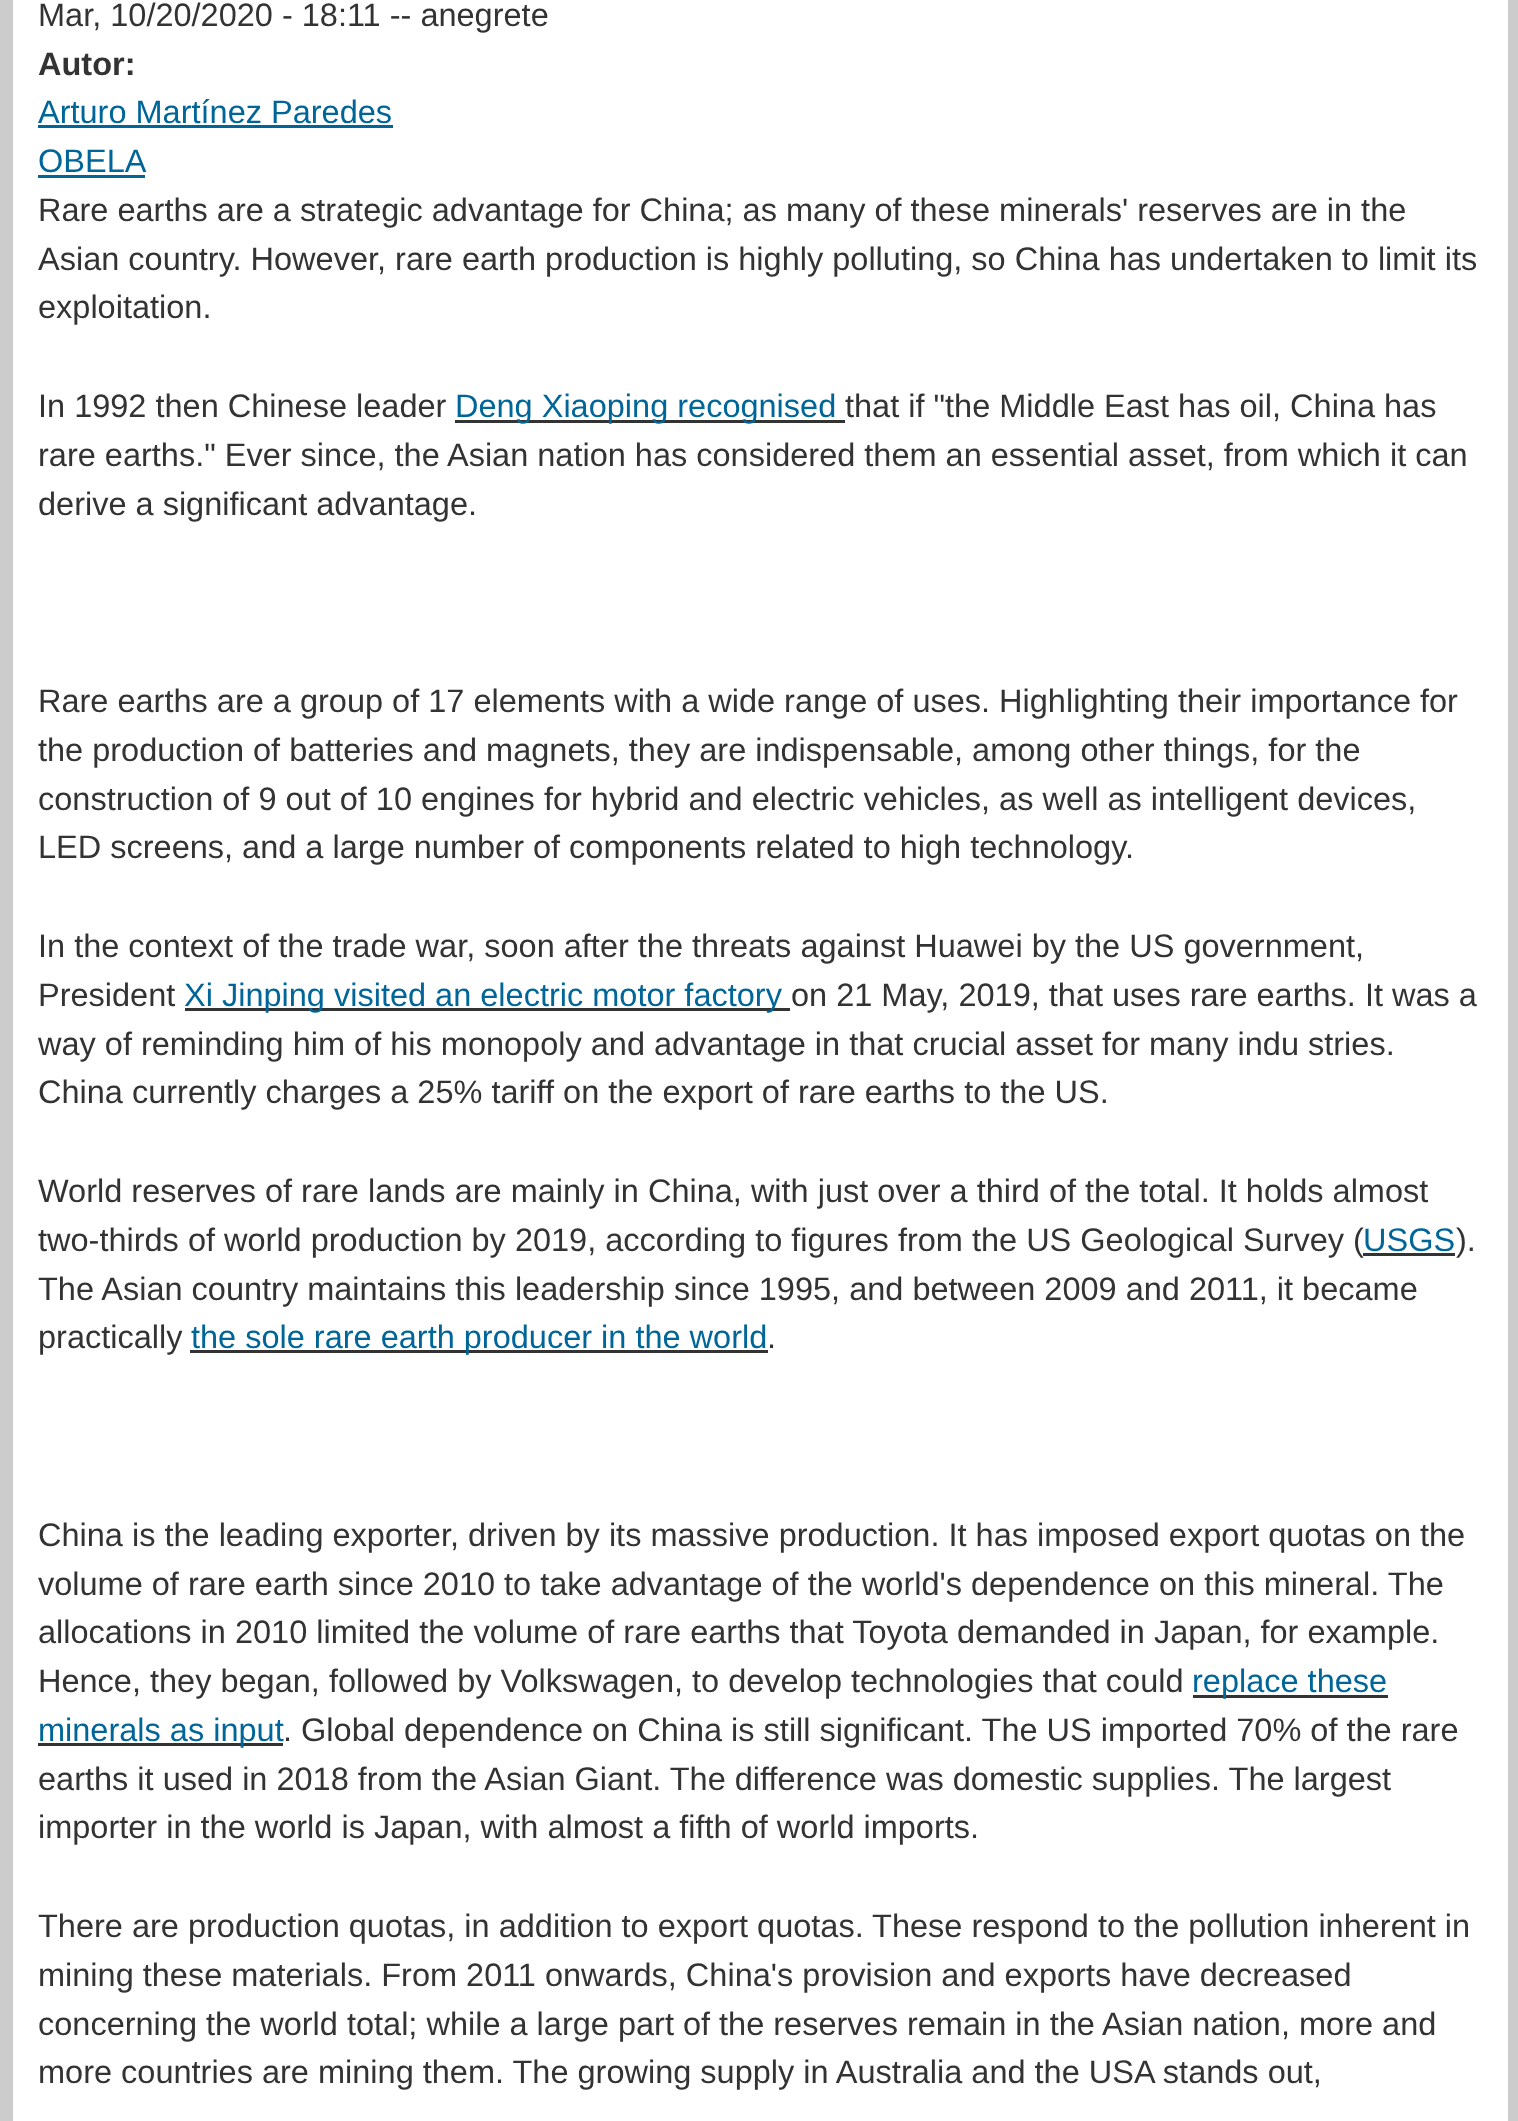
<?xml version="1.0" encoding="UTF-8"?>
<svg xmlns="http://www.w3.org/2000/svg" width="1518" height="2121">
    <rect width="100%" height="100%" fill="#CCCCCC"/>
    <rect x="13" y="0" width="1495" height="2121" fill="#FFFFFF"/>
    <text x="38" y="26" font-family="Liberation Sans" font-size="32.5" fill="#333333">Mar, 10/20/2020 - 18:11 -- anegrete</text>
    <text x="38" y="75" font-family="Liberation Sans" font-size="32.5" font-weight="700" fill="#333333">Autor:</text>
    <text x="38" y="123" font-family="Liberation Sans" font-size="32.5" fill="#006699">Arturo Martínez Paredes</text>
    <rect x="38" y="125" width="355" height="3" fill="#006699"/>
    <text x="38" y="172" font-family="Liberation Sans" font-size="32.5" fill="#006699">OBELA</text>
    <rect x="38" y="175" width="107" height="3" fill="#006699"/>
    <text font-family="Liberation Sans" font-size="32.5" fill="#333333">
        <tspan x="38" y="221">Rare earths are a strategic advantage for China; as many of these minerals' reserves are in the</tspan>
        <tspan x="38" y="270">Asian country. However, rare earth production is highly polluting, so China has undertaken to limit its</tspan>
        <tspan x="38" y="318">exploitation.</tspan>
    </text>
    <text x="38" y="417" font-family="Liberation Sans" font-size="32.5" fill="#333333">In 1992 then Chinese leader</text>
    <rect x="455" y="420" width="390" height="3" fill="#333333"/>
    <text x="455" y="417" font-family="Liberation Sans" font-size="32.5" fill="#006699">Deng Xiaoping recognised</text>
    <text x="845" y="417" font-family="Liberation Sans" font-size="32.5" fill="#333333">that if "the Middle East has oil, China has</text>
    <text font-family="Liberation Sans" font-size="32.5" fill="#333333">
        <tspan x="38" y="466">rare earths." Ever since, the Asian nation has considered them an essential asset, from which it can</tspan>
        <tspan x="38" y="515">derive a significant advantage.</tspan>
    </text>
    <text font-family="Liberation Sans" font-size="32.5" fill="#333333">
        <tspan x="38" y="712">Rare earths are a group of 17 elements with a wide range of uses. Highlighting their importance for</tspan>
        <tspan x="38" y="761">the production of batteries and magnets, they are indispensable, among other things, for the</tspan>
        <tspan x="38" y="810">construction of 9 out of 10 engines for hybrid and electric vehicles, as well as intelligent devices,</tspan>
        <tspan x="38" y="858">LED screens, and a large number of components related to high technology.</tspan>
    </text>
    <text font-family="Liberation Sans" font-size="32.5" fill="#333333">
        <tspan x="38" y="957">In the context of the trade war, soon after the threats against Huawei by the US government,</tspan>
        <tspan x="38" y="1006">President</tspan>
    </text>
    <rect x="185" y="1008" width="605" height="3" fill="#333333"/>
    <text x="184" y="1006" font-family="Liberation Sans" font-size="32.5" fill="#006699">Xi Jinping visited an electric motor factory</text>
    <text x="791" y="1006" font-family="Liberation Sans" font-size="32.5" fill="#333333">on 21 May, 2019, that uses rare earths. It was a</text>
    <text font-family="Liberation Sans" font-size="32.5" fill="#333333">
        <tspan x="38" y="1055">way of reminding him of his monopoly and advantage in that crucial asset for many indu stries.</tspan>
        <tspan x="38" y="1103">China currently charges a 25% tariff on the export of rare earths to the US.</tspan>
    </text>
    <text font-family="Liberation Sans" font-size="32.5" fill="#333333">
        <tspan x="38" y="1202">World reserves of rare lands are mainly in China, with just over a third of the total. It holds almost</tspan>
        <tspan x="38" y="1251">two-thirds of world production by 2019, according to figures from the US Geological Survey (</tspan>
    </text>
    <text x="1363" y="1251" font-family="Liberation Sans" font-size="32.5" fill="#006699">USGS</text>
    <rect x="1363" y="1253" width="92" height="3" fill="#333333"/>
    <text x="1456" y="1251" font-family="Liberation Sans" font-size="32.5" fill="#333333">).</text>
    <text font-family="Liberation Sans" font-size="32.5" fill="#333333">
        <tspan x="38" y="1300">The Asian country maintains this leadership since 1995, and between 2009 and 2011, it became</tspan>
        <tspan x="38" y="1348">practically</tspan>
    </text>
    <rect x="190" y="1350" width="578" height="3" fill="#333333"/>
    <text x="191" y="1348" font-family="Liberation Sans" font-size="32.5" fill="#006699">the sole rare earth producer in the world</text>
    <text x="767" y="1348" font-family="Liberation Sans" font-size="32.5" fill="#333333">.</text>
    <text font-family="Liberation Sans" font-size="32.5" fill="#333333">
        <tspan x="38" y="1546">China is the leading exporter, driven by its massive production. It has imposed export quotas on the</tspan>
        <tspan x="38" y="1595">volume of rare earth since 2010 to take advantage of the world's dependence on this mineral. The</tspan>
        <tspan x="38" y="1643">allocations in 2010 limited the volume of rare earths that Toyota demanded in Japan, for example.</tspan>
        <tspan x="38" y="1692">Hence, they began, followed by Volkswagen, to develop technologies that could</tspan>
    </text>
    <rect x="1193" y="1695" width="195" height="3" fill="#333333"/>
    <text x="1192" y="1692" font-family="Liberation Sans" font-size="32.5" fill="#006699">replace these</text>
    <rect x="38" y="1743" width="245" height="3" fill="#333333"/>
    <text x="38" y="1741" font-family="Liberation Sans" font-size="32.5" fill="#006699">minerals as input</text>
    <text x="283" y="1741" font-family="Liberation Sans" font-size="32.5" fill="#333333">. Global dependence on China is still significant. The US imported 70% of the rare</text>
    <text font-family="Liberation Sans" font-size="32.5" fill="#333333">
        <tspan x="38" y="1790">earths it used in 2018 from the Asian Giant. The difference was domestic supplies. The largest</tspan>
        <tspan x="38" y="1838">importer in the world is Japan, with almost a fifth of world imports.</tspan>
    </text>
    <text font-family="Liberation Sans" font-size="32.5" fill="#333333">
        <tspan x="38" y="1937">There are production quotas, in addition to export quotas. These respond to the pollution inherent in</tspan>
        <tspan x="38" y="1986">mining these materials. From 2011 onwards, China's provision and exports have decreased</tspan>
        <tspan x="38" y="2035">concerning the world total; while a large part of the reserves remain in the Asian nation, more and</tspan>
        <tspan x="38" y="2083">more countries are mining them. The growing supply in Australia and the USA stands out,</tspan>
    </text>
</svg>
